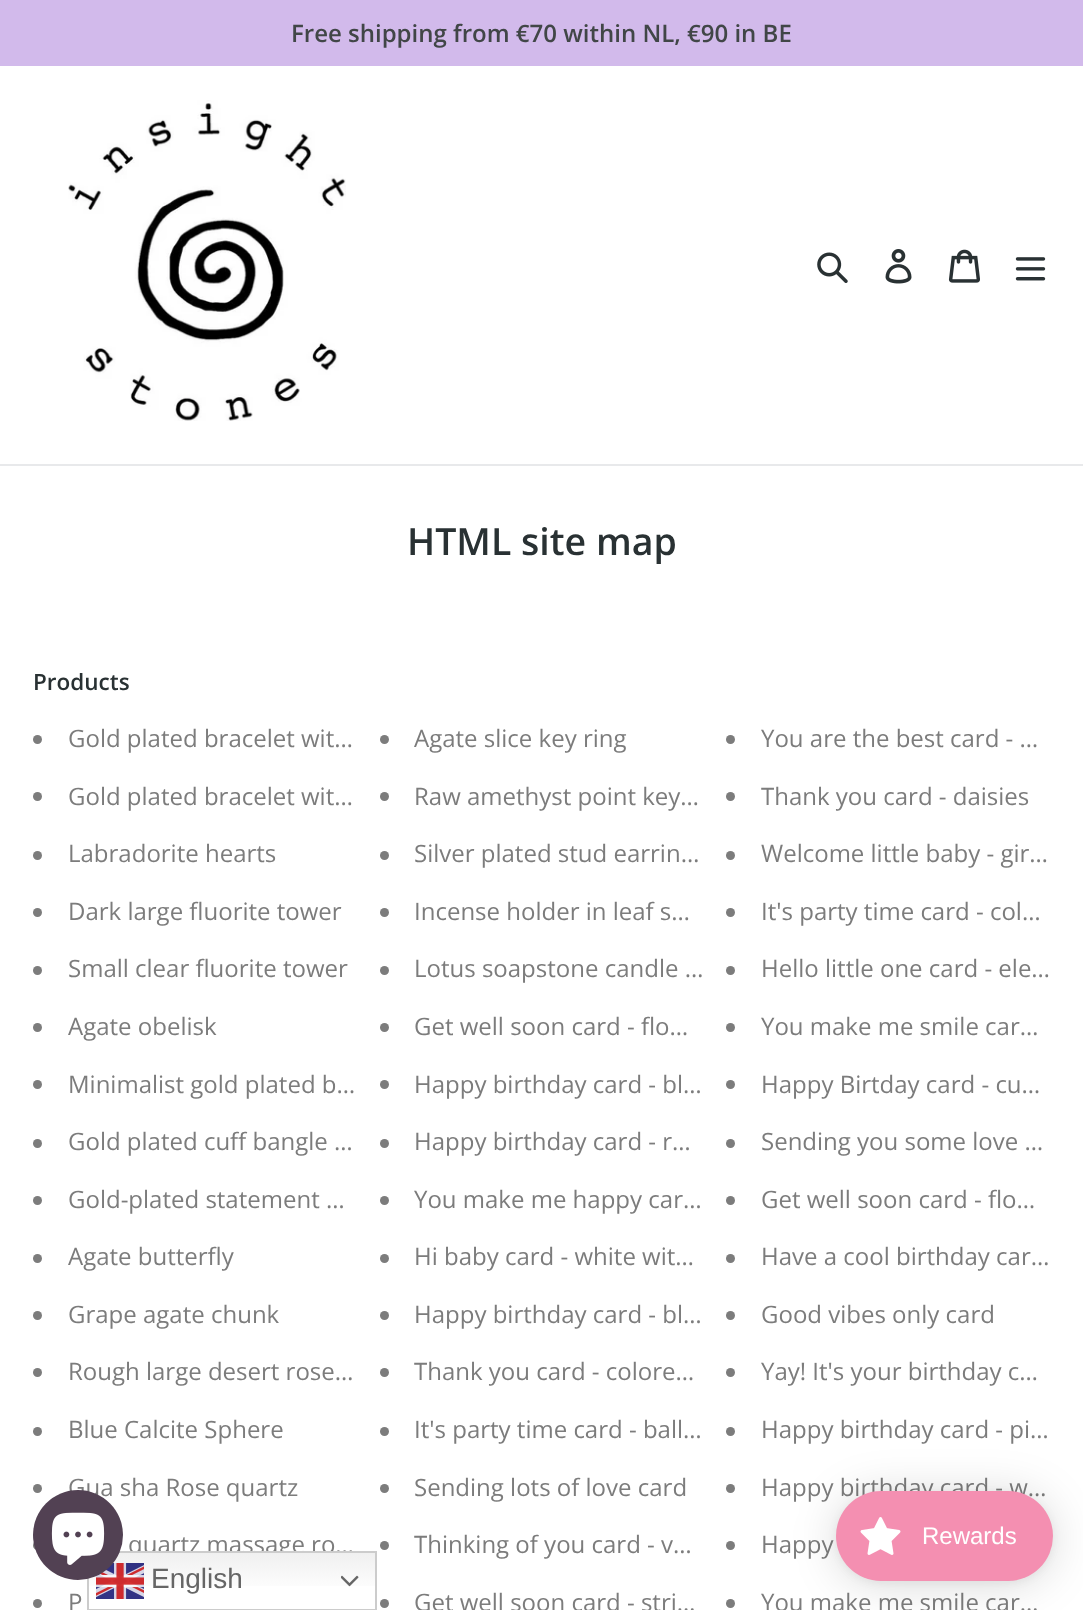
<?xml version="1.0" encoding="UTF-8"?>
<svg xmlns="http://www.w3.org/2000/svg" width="1083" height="1610">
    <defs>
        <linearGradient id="g1" gradientUnits="userSpaceOnUse" x1="232" y1="1551" x2="232" y2="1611"><stop offset="0" stop-color="#EFEFEF"/><stop offset="0.7" stop-color="#FFFFFF"/></linearGradient>
        <filter id="blur1" x="-50%" y="-200%" width="200%" height="500%"><feGaussianBlur stdDeviation="22.5"/></filter>
        <filter id="blur2" x="-50%" y="-200%" width="200%" height="500%"><feGaussianBlur stdDeviation="4.5"/></filter>
    </defs>
    <rect width="100%" height="100%" fill="#FFFFFF"/>
    <rect x="0" y="0" width="1083" height="66" fill="#D2BAEB"/>
    <text x="291" y="42" font-family="Open Sans" font-size="24" font-weight="600" fill="#414647">Free shipping from €70 within NL, €90 in BE</text>
    <rect x="0" y="464" width="1083" height="2" fill="#E8E9EB"/>
    <image x="68" y="100" width="278" height="321" href="img_01.png"/>
    <image x="817" y="252" width="31" height="31" href="img_02.png"/>
    <image x="885" y="249" width="27" height="35" href="img_03.png"/>
    <image x="948" y="249" width="32" height="34" href="img_04.png"/>
    <image x="1015" y="257" width="31" height="24" href="img_05.png"/>
    <text x="407" y="555" font-family="Open Sans" font-size="37.5" font-weight="600" fill="#293133">HTML site map</text>
    <text x="33" y="690" font-family="Open Sans" font-size="22.5" font-weight="600" fill="#293133">Products</text>
    <circle cx="37.5" cy="739.5" r="4.5" fill="#7C7C7C"/>
    <text x="68" y="747" font-family="Open Sans" font-size="24" fill="#7C7C7C">Gold plated bracelet wit…</text>
    <circle cx="384.5" cy="739.5" r="4.5" fill="#7C7C7C"/>
    <text x="414" y="747" font-family="Open Sans" font-size="24" fill="#7C7C7C">Agate slice key ring</text>
    <circle cx="730.5" cy="739.5" r="4.5" fill="#7C7C7C"/>
    <text x="761" y="747" font-family="Open Sans" font-size="24" fill="#7C7C7C">You are the best card - …</text>
    <circle cx="37.5" cy="796.5" r="4.5" fill="#7C7C7C"/>
    <text x="68" y="805" font-family="Open Sans" font-size="24" fill="#7C7C7C">Gold plated bracelet wit…</text>
    <circle cx="384.5" cy="796.5" r="4.5" fill="#7C7C7C"/>
    <text x="414" y="805" font-family="Open Sans" font-size="24" fill="#7C7C7C">Raw amethyst point key…</text>
    <circle cx="730.5" cy="796.5" r="4.5" fill="#7C7C7C"/>
    <text x="761" y="805" font-family="Open Sans" font-size="24" fill="#7C7C7C">Thank you card - daisies</text>
    <circle cx="37.5" cy="855.5" r="4.5" fill="#7C7C7C"/>
    <text x="68" y="862" font-family="Open Sans" font-size="24" fill="#7C7C7C">Labradorite hearts</text>
    <circle cx="384.5" cy="855.5" r="4.5" fill="#7C7C7C"/>
    <text x="414" y="862" font-family="Open Sans" font-size="24" fill="#7C7C7C">Silver plated stud earrin…</text>
    <circle cx="730.5" cy="855.5" r="4.5" fill="#7C7C7C"/>
    <text x="761" y="862" font-family="Open Sans" font-size="24" fill="#7C7C7C">Welcome little baby - gir…</text>
    <circle cx="37.5" cy="912.5" r="4.5" fill="#7C7C7C"/>
    <text x="68" y="920" font-family="Open Sans" font-size="24" fill="#7C7C7C">Dark large fluorite tower</text>
    <circle cx="384.5" cy="912.5" r="4.5" fill="#7C7C7C"/>
    <text x="414" y="920" font-family="Open Sans" font-size="24" fill="#7C7C7C">Incense holder in leaf s…</text>
    <circle cx="730.5" cy="912.5" r="4.5" fill="#7C7C7C"/>
    <text x="761" y="920" font-family="Open Sans" font-size="24" fill="#7C7C7C">It's party time card - col…</text>
    <circle cx="37.5" cy="970.5" r="4.5" fill="#7C7C7C"/>
    <text x="68" y="977" font-family="Open Sans" font-size="24" fill="#7C7C7C">Small clear fluorite tower</text>
    <circle cx="384.5" cy="970.5" r="4.5" fill="#7C7C7C"/>
    <text x="414" y="977" font-family="Open Sans" font-size="24" fill="#7C7C7C">Lotus soapstone candle …</text>
    <circle cx="730.5" cy="970.5" r="4.5" fill="#7C7C7C"/>
    <text x="761" y="977" font-family="Open Sans" font-size="24" fill="#7C7C7C">Hello little one card - ele…</text>
    <circle cx="37.5" cy="1027.5" r="4.5" fill="#7C7C7C"/>
    <text x="68" y="1035" font-family="Open Sans" font-size="24" fill="#7C7C7C">Agate obelisk</text>
    <circle cx="384.5" cy="1027.5" r="4.5" fill="#7C7C7C"/>
    <text x="414" y="1035" font-family="Open Sans" font-size="24" fill="#7C7C7C">Get well soon card - flo…</text>
    <circle cx="730.5" cy="1027.5" r="4.5" fill="#7C7C7C"/>
    <text x="761" y="1035" font-family="Open Sans" font-size="24" fill="#7C7C7C">You make me smile car…</text>
    <circle cx="37.5" cy="1084.5" r="4.5" fill="#7C7C7C"/>
    <text x="68" y="1093" font-family="Open Sans" font-size="24" fill="#7C7C7C">Minimalist gold plated b…</text>
    <circle cx="384.5" cy="1084.5" r="4.5" fill="#7C7C7C"/>
    <text x="414" y="1093" font-family="Open Sans" font-size="24" fill="#7C7C7C">Happy birthday card - bl…</text>
    <circle cx="730.5" cy="1084.5" r="4.5" fill="#7C7C7C"/>
    <text x="761" y="1093" font-family="Open Sans" font-size="24" fill="#7C7C7C">Happy Birtday card - cu…</text>
    <circle cx="37.5" cy="1143.5" r="4.5" fill="#7C7C7C"/>
    <text x="68" y="1150" font-family="Open Sans" font-size="24" fill="#7C7C7C">Gold plated cuff bangle …</text>
    <circle cx="384.5" cy="1143.5" r="4.5" fill="#7C7C7C"/>
    <text x="414" y="1150" font-family="Open Sans" font-size="24" fill="#7C7C7C">Happy birthday card - r…</text>
    <circle cx="730.5" cy="1143.5" r="4.5" fill="#7C7C7C"/>
    <text x="761" y="1150" font-family="Open Sans" font-size="24" fill="#7C7C7C">Sending you some love …</text>
    <circle cx="37.5" cy="1200.5" r="4.5" fill="#7C7C7C"/>
    <text x="68" y="1208" font-family="Open Sans" font-size="24" fill="#7C7C7C">Gold-plated statement …</text>
    <circle cx="384.5" cy="1200.5" r="4.5" fill="#7C7C7C"/>
    <text x="414" y="1208" font-family="Open Sans" font-size="24" fill="#7C7C7C">You make me happy car…</text>
    <circle cx="730.5" cy="1200.5" r="4.5" fill="#7C7C7C"/>
    <text x="761" y="1208" font-family="Open Sans" font-size="24" fill="#7C7C7C">Get well soon card - flo…</text>
    <circle cx="37.5" cy="1258.5" r="4.5" fill="#7C7C7C"/>
    <text x="68" y="1265" font-family="Open Sans" font-size="24" fill="#7C7C7C">Agate butterfly</text>
    <circle cx="384.5" cy="1258.5" r="4.5" fill="#7C7C7C"/>
    <text x="414" y="1265" font-family="Open Sans" font-size="24" fill="#7C7C7C">Hi baby card - white wit…</text>
    <circle cx="730.5" cy="1258.5" r="4.5" fill="#7C7C7C"/>
    <text x="761" y="1265" font-family="Open Sans" font-size="24" fill="#7C7C7C">Have a cool birthday car…</text>
    <circle cx="37.5" cy="1315.5" r="4.5" fill="#7C7C7C"/>
    <text x="68" y="1323" font-family="Open Sans" font-size="24" fill="#7C7C7C">Grape agate chunk</text>
    <circle cx="384.5" cy="1315.5" r="4.5" fill="#7C7C7C"/>
    <text x="414" y="1323" font-family="Open Sans" font-size="24" fill="#7C7C7C">Happy birthday card - bl…</text>
    <circle cx="730.5" cy="1315.5" r="4.5" fill="#7C7C7C"/>
    <text x="761" y="1323" font-family="Open Sans" font-size="24" fill="#7C7C7C">Good vibes only card</text>
    <circle cx="37.5" cy="1372.5" r="4.5" fill="#7C7C7C"/>
    <text x="68" y="1380" font-family="Open Sans" font-size="24" fill="#7C7C7C">Rough large desert rose…</text>
    <circle cx="384.5" cy="1372.5" r="4.5" fill="#7C7C7C"/>
    <text x="414" y="1380" font-family="Open Sans" font-size="24" fill="#7C7C7C">Thank you card - colore…</text>
    <circle cx="730.5" cy="1372.5" r="4.5" fill="#7C7C7C"/>
    <text x="761" y="1380" font-family="Open Sans" font-size="24" fill="#7C7C7C">Yay! It's your birthday c…</text>
    <circle cx="37.5" cy="1431.5" r="4.5" fill="#7C7C7C"/>
    <text x="68" y="1438" font-family="Open Sans" font-size="24" fill="#7C7C7C">Blue Calcite Sphere</text>
    <circle cx="384.5" cy="1431.5" r="4.5" fill="#7C7C7C"/>
    <text x="414" y="1438" font-family="Open Sans" font-size="24" fill="#7C7C7C">It's party time card - ball…</text>
    <circle cx="730.5" cy="1431.5" r="4.5" fill="#7C7C7C"/>
    <text x="761" y="1438" font-family="Open Sans" font-size="24" fill="#7C7C7C">Happy birthday card - pi…</text>
    <circle cx="37.5" cy="1488.5" r="4.5" fill="#7C7C7C"/>
    <text x="68" y="1496" font-family="Open Sans" font-size="24" fill="#7C7C7C">Gua sha Rose quartz</text>
    <circle cx="384.5" cy="1488.5" r="4.5" fill="#7C7C7C"/>
    <text x="414" y="1496" font-family="Open Sans" font-size="24" fill="#7C7C7C">Sending lots of love card</text>
    <circle cx="730.5" cy="1488.5" r="4.5" fill="#7C7C7C"/>
    <text x="761" y="1496" font-family="Open Sans" font-size="24" fill="#7C7C7C">Happy birthday card - w…</text>
    <circle cx="37.5" cy="1545.5" r="4.5" fill="#7C7C7C"/>
    <text x="128" y="1553" font-family="Open Sans" font-size="24" fill="#7C7C7C">quartz massage ro…</text>
    <circle cx="384.5" cy="1545.5" r="4.5" fill="#7C7C7C"/>
    <text x="414" y="1553" font-family="Open Sans" font-size="24" fill="#7C7C7C">Thinking of you card - v…</text>
    <circle cx="730.5" cy="1545.5" r="4.5" fill="#7C7C7C"/>
    <text x="761" y="1553" font-family="Open Sans" font-size="24" fill="#7C7C7C">Happy</text>
    <circle cx="37.5" cy="1603.5" r="4.5" fill="#7C7C7C"/>
    <text x="68" y="1611" font-family="Open Sans" font-size="24" fill="#7C7C7C">P</text>
    <circle cx="384.5" cy="1603.5" r="4.5" fill="#7C7C7C"/>
    <text x="414" y="1611" font-family="Open Sans" font-size="24" fill="#7C7C7C">Get well soon card - stri…</text>
    <circle cx="730.5" cy="1603.5" r="4.5" fill="#7C7C7C"/>
    <text x="761" y="1611" font-family="Open Sans" font-size="24" fill="#7C7C7C">You make me smile car…</text>
    <rect x="89" y="1553" width="286" height="33" fill="url(#g1)"/>
    <rect x="88" y="1552" width="288" height="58" fill="none" stroke="#CCCCCC" stroke-width="2"/>
    <image x="96" y="1563" width="48" height="36" href="img_08.png"/>
    <circle cx="78" cy="1535" r="45" fill="#524153"/>
    <image x="51" y="1512" width="54" height="53" href="img_06.png"/>
    <rect x="836" y="1494" width="217" height="90" rx="45" fill="#000000" fill-opacity="0.15" filter="url(#blur1)"/>
    <rect x="836" y="1493" width="217" height="90" rx="45" fill="#000000" fill-opacity="0.05" filter="url(#blur2)"/>
    <rect x="836" y="1491" width="217" height="90" rx="45" fill="#F48FB1"/>
    <image x="860" y="1517" width="41" height="38" href="img_07.png"/>
    <text x="922" y="1544" font-family="Liberation Sans" font-size="24" fill="#FFFFFF">Rewards</text>
    <text x="151" y="1588" font-family="Liberation Sans" font-size="28" fill="#666666">English</text>
    <image x="341" y="1575" width="18" height="12" href="img_09.png"/>
</svg>
